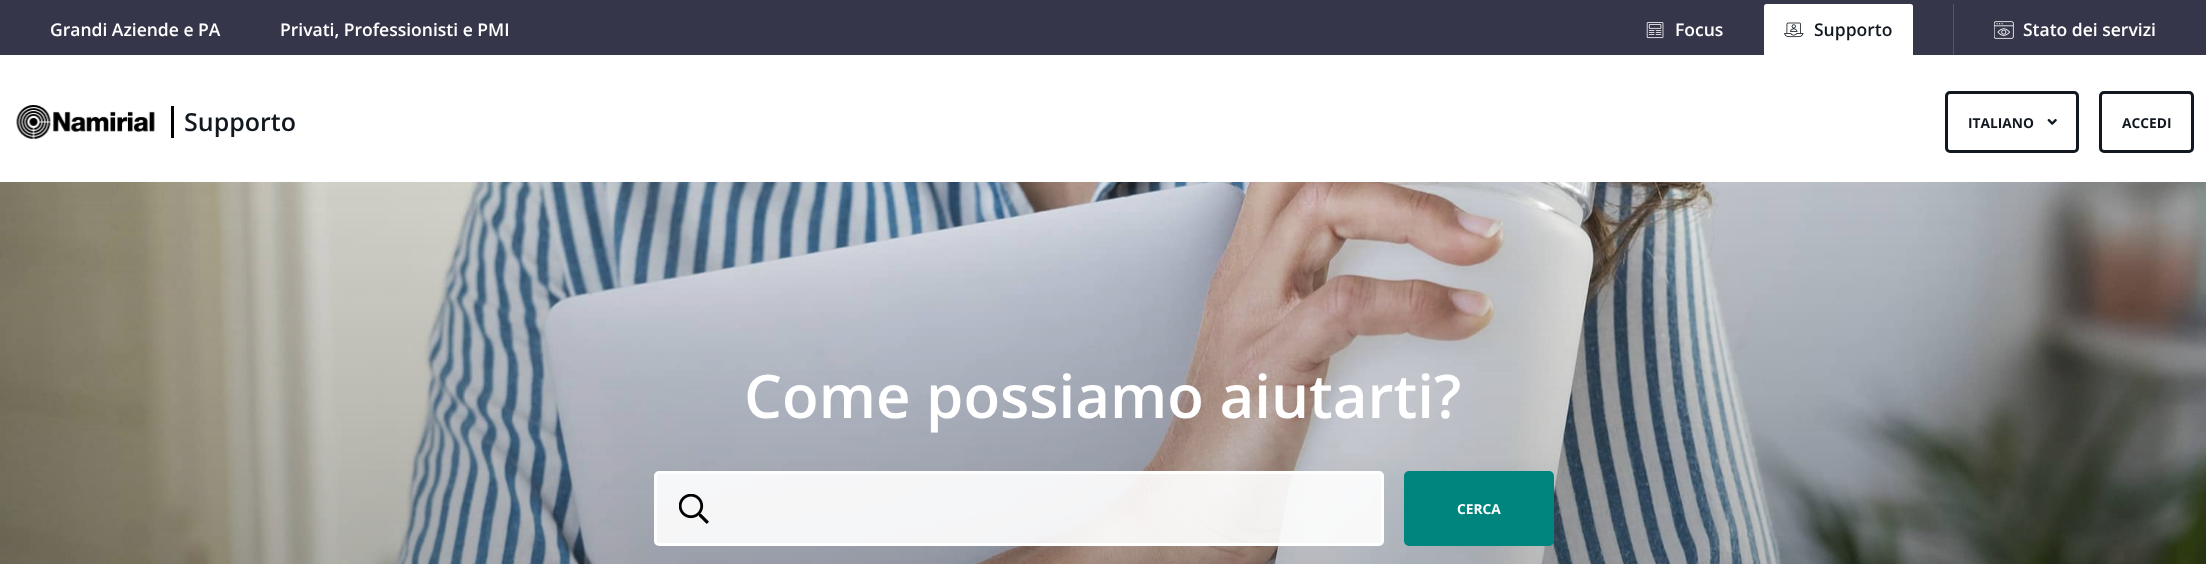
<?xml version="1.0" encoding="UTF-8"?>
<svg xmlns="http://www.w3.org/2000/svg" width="2206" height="564">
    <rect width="100%" height="100%" fill="#FFFFFF"/>
    <rect x="0" y="0" width="2206" height="55" fill="#35364A"/>
    <text x="50" y="36" font-family="Open Sans" font-size="17.5" font-weight="600" fill="#FFFFFF">Grandi Aziende e PA</text>
    <text x="280" y="36" font-family="Open Sans" font-size="17.5" font-weight="600" fill="#FFFFFF">Privati, Professionisti e PMI</text>
    <image x="1646" y="22" width="18" height="17" href="img_01.png"/>
    <text x="1675" y="36" font-family="Open Sans" font-size="17.5" font-weight="600" fill="#FFFFFF">Focus</text>
    <path d="M 1766.5 4 H 1910.5 C 1912 4 1913 5 1913 6.5 V 55 H 1764 V 6.5 C 1764 5 1765 4 1766.5 4 Z" fill="#FFFFFF"/>
    <image x="1784" y="22" width="20" height="16" href="img_02.png"/>
    <text x="1814" y="36" font-family="Open Sans" font-size="17.5" font-weight="600" fill="#111820">Supporto</text>
    <rect x="1953" y="4" width="1" height="51" fill="#555667"/>
    <image x="1994" y="21" width="20" height="18" href="img_03.png"/>
    <text x="2023" y="36" font-family="Open Sans" font-size="17.5" font-weight="600" fill="#FFFFFF">Stato dei servizi</text>
    <image x="16" y="105" width="139" height="34" href="img_04.png"/>
    <rect x="171" y="106" width="3" height="32" fill="#000000"/>
    <text x="184" y="131" font-family="Open Sans" font-size="25" font-weight="600" fill="#111820">Supporto</text>
    <rect x="1946.5" y="92.5" width="131" height="59" rx="3.5" fill="none" stroke="#111820" stroke-width="3"/>
    <text x="1968" y="128" font-family="Open Sans" font-size="13.75" font-weight="700" fill="#111820">ITALIANO</text>
    <image x="2047" y="118" width="10" height="7" href="img_05.png"/>
    <rect x="2100.5" y="92.5" width="92" height="59" rx="3.5" fill="none" stroke="#111820" stroke-width="3"/>
    <text x="2122" y="128" font-family="Open Sans" font-size="13.75" font-weight="700" fill="#111820">ACCEDI</text>
    <image x="0" y="182" width="2206" height="382" href="img_06.png"/>
    <text x="744" y="418" font-family="Open Sans" font-size="60" font-weight="600" fill="#FFFFFF">Come possiamo aiutarti?</text>
    <rect x="655.5" y="472.5" width="727" height="72" rx="3.5" fill="#FFFFFF" fill-opacity="0.9" stroke="#FFFFFF" stroke-width="3"/>
    <image x="679" y="494" width="30" height="30" href="img_07.png"/>
    <rect x="1405.5" y="472.5" width="147" height="72" rx="3.5" fill="#00857E" stroke="#00857E" stroke-width="3"/>
    <text x="1457" y="514" font-family="Open Sans" font-size="13.75" font-weight="700" fill="#FFFFFF">CERCA</text>
</svg>
